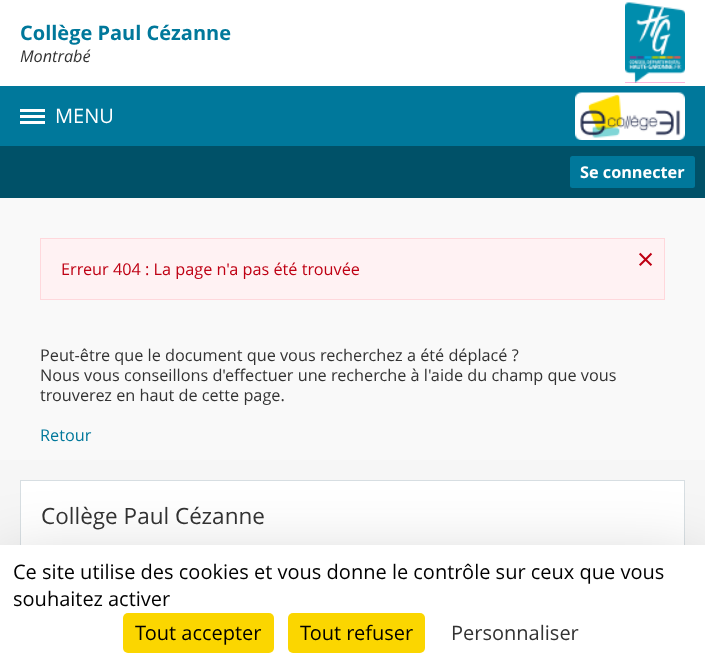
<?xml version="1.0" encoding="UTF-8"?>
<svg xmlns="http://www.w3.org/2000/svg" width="705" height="664">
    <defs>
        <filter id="blur1" x="-50%" y="-200%" width="200%" height="500%"><feGaussianBlur stdDeviation="37.5"/></filter>
    </defs>
    <rect width="100%" height="100%" fill="#FFFFFF"/>
    <text x="20" y="40" font-family="Open Sans" font-size="20" font-weight="700" fill="#00789B">Collège Paul Cézanne</text>
    <text x="20" y="62" font-family="Open Sans" font-size="16.25" font-style="italic" fill="#333333">Montrabé</text>
    <rect x="625" y="82" width="60" height="1" fill="#FF69B4"/>
    <image x="625" y="2" width="60" height="81" href="img_01.png"/>
    <rect x="0" y="86" width="705" height="60" fill="#00789B"/>
    <rect x="20" y="109" width="25" height="3" fill="#FFFFFF"/>
    <rect x="20" y="115" width="25" height="3" fill="#FFFFFF"/>
    <rect x="20" y="121" width="25" height="3" fill="#FFFFFF"/>
    <text x="55" y="123" font-family="Open Sans" font-size="20" fill="#FFFFFF">MENU</text>
    <rect x="0" y="146" width="705" height="52" fill="#005168"/>
    <image x="575" y="92" width="110" height="48" href="img_02.png"/>
    <rect x="570" y="156" width="125" height="32" rx="2.5" fill="#00789B"/>
    <text x="580" y="178" font-family="Open Sans" font-size="16.25" font-weight="700" fill="#FFFFFF">Se connecter</text>
    <rect x="0" y="198" width="705" height="262" fill="#F9F9F9"/>
    <rect x="40.5" y="238.5" width="624" height="61" fill="#FFF2F3" stroke="#FFD8DC"/>
    <text x="637" y="270" font-family="Open Sans" font-size="30" fill="#BF0013">×</text>
    <text x="61" y="275" font-family="Open Sans" font-size="16.25" fill="#BF0013">Erreur 404 : La page n'a pas été trouvée</text>
    <text font-family="Open Sans" font-size="16.25" fill="#333333">
        <tspan x="40" y="361">Peut-être que le document que vous recherchez a été déplacé ?</tspan>
        <tspan x="40" y="381">Nous vous conseillons d'effectuer une recherche à l'aide du champ que vous</tspan>
        <tspan x="40" y="401">trouverez en haut de cette page.</tspan>
    </text>
    <text x="40" y="441" font-family="Open Sans" font-size="16.25" fill="#00789B">Retour</text>
    <rect x="0" y="460" width="705" height="85" fill="#F6F6F6"/>
    <rect x="21" y="481" width="663" height="64" fill="#FFFFFF"/>
    <rect x="20.5" y="480.5" width="664" height="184" fill="none" stroke="#D7DEE2"/>
    <text x="41" y="524" font-family="Open Sans" font-size="22.5" fill="#333333">Collège Paul Cézanne</text>
    <rect x="0" y="570" width="705" height="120" fill="#000000" fill-opacity="0.25" filter="url(#blur1)"/>
    <rect x="0" y="545" width="705" height="119" fill="#FFFFFF"/>
    <text font-family="Open Sans" font-size="20" fill="#000000">
        <tspan x="13" y="579">Ce site utilise des cookies et vous donne le contrôle sur ceux que vous</tspan>
        <tspan x="13" y="606">souhaitez activer</tspan>
    </text>
    <rect x="123" y="613" width="151" height="40" rx="5" fill="#FBD600"/>
    <text x="135" y="640" font-family="Open Sans" font-size="20" fill="#000000">Tout accepter</text>
    <rect x="288" y="613" width="137" height="40" rx="5" fill="#FBD600"/>
    <text x="300" y="640" font-family="Open Sans" font-size="20" fill="#000000">Tout refuser</text>
    <text x="451" y="640" font-family="Open Sans" font-size="20" fill="#333333">Personnaliser</text>
</svg>
